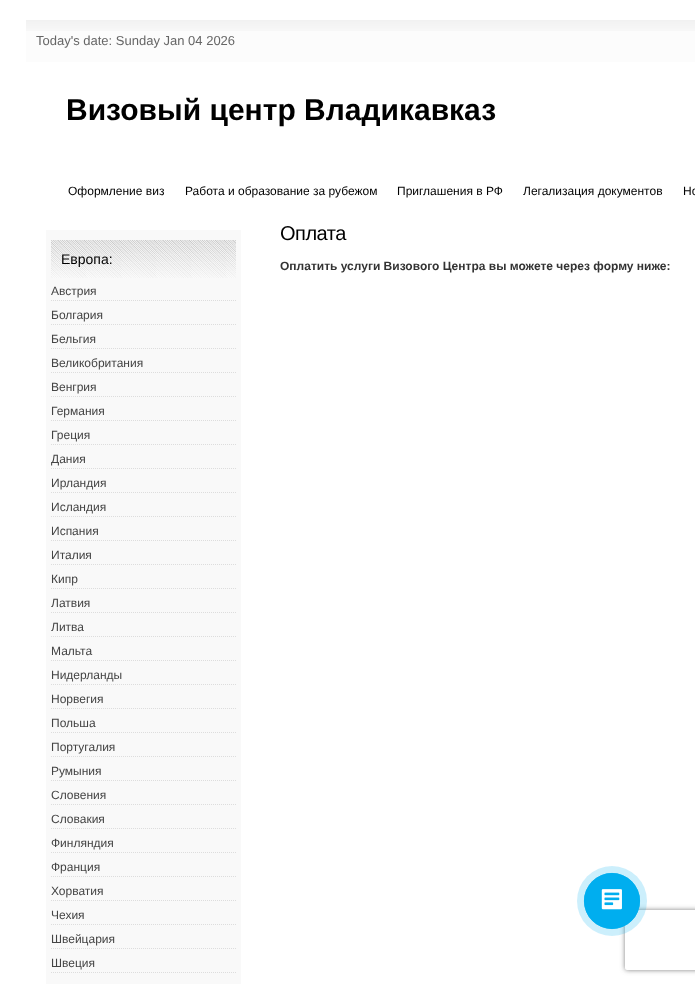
<?xml version="1.0" encoding="UTF-8"?>
<svg xmlns="http://www.w3.org/2000/svg" width="695" height="984">
    <defs>
        <clipPath id="clip1"><path d="M 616 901 H 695 V 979 H 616 Z M 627 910 H 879 C 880 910 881 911 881 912 V 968 C 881 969 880 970 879 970 H 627 C 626 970 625 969 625 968 V 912 C 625 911 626 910 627 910 Z" clip-rule="evenodd"/></clipPath>
        <filter id="blur1" x="-50%" y="-200%" width="200%" height="500%"><feGaussianBlur stdDeviation="2.5"/></filter>
    </defs>
    <rect width="100%" height="100%" fill="#FFFFFF"/>
    <rect x="26" y="20" width="669" height="42" fill="#FCFCFC"/>
    <image x="26" y="20" width="669" height="11" href="img_01.png"/>
    <text x="36" y="45" font-family="Liberation Sans" font-size="13" fill="#666666">Today's date: Sunday Jan 04 2026</text>
    <text x="66" y="120" font-family="Liberation Sans" font-size="30" font-weight="700" fill="#000000">Визовый центр Владикавказ</text>
    <text x="68" y="195" font-family="Liberation Sans" font-size="12" fill="#000000">Оформление виз</text>
    <text x="185" y="195" font-family="Liberation Sans" font-size="12" fill="#000000">Работа и образование за рубежом</text>
    <text x="397" y="195" font-family="Liberation Sans" font-size="12" fill="#000000">Приглашения в РФ</text>
    <text x="523" y="195" font-family="Liberation Sans" font-size="12" fill="#000000">Легализация документов</text>
    <text x="683" y="195" font-family="Liberation Sans" font-size="12" fill="#000000">Но</text>
    <rect x="46" y="230" width="195" height="754" fill="#F9F9F9"/>
    <image x="51" y="240" width="185" height="38" href="img_02.png"/>
    <text x="61" y="264" font-family="Liberation Sans" font-size="14" fill="#000000">Европа:</text>
    <path d="M 51 300.5 H 236" fill="none" stroke="#DDDDDD" stroke-dasharray="1 1"/>
    <text x="51" y="295" font-family="Liberation Sans" font-size="12" fill="#444444">Австрия</text>
    <path d="M 51 324.5 H 236" fill="none" stroke="#DDDDDD" stroke-dasharray="1 1"/>
    <text x="51" y="319" font-family="Liberation Sans" font-size="12" fill="#444444">Болгария</text>
    <path d="M 51 348.5 H 236" fill="none" stroke="#DDDDDD" stroke-dasharray="1 1"/>
    <text x="51" y="343" font-family="Liberation Sans" font-size="12" fill="#444444">Бельгия</text>
    <path d="M 51 372.5 H 236" fill="none" stroke="#DDDDDD" stroke-dasharray="1 1"/>
    <text x="51" y="367" font-family="Liberation Sans" font-size="12" fill="#444444">Великобритания</text>
    <path d="M 51 396.5 H 236" fill="none" stroke="#DDDDDD" stroke-dasharray="1 1"/>
    <text x="51" y="391" font-family="Liberation Sans" font-size="12" fill="#444444">Венгрия</text>
    <path d="M 51 420.5 H 236" fill="none" stroke="#DDDDDD" stroke-dasharray="1 1"/>
    <text x="51" y="415" font-family="Liberation Sans" font-size="12" fill="#444444">Германия</text>
    <path d="M 51 444.5 H 236" fill="none" stroke="#DDDDDD" stroke-dasharray="1 1"/>
    <text x="51" y="439" font-family="Liberation Sans" font-size="12" fill="#444444">Греция</text>
    <path d="M 51 468.5 H 236" fill="none" stroke="#DDDDDD" stroke-dasharray="1 1"/>
    <text x="51" y="463" font-family="Liberation Sans" font-size="12" fill="#444444">Дания</text>
    <path d="M 51 492.5 H 236" fill="none" stroke="#DDDDDD" stroke-dasharray="1 1"/>
    <text x="51" y="487" font-family="Liberation Sans" font-size="12" fill="#444444">Ирландия</text>
    <path d="M 51 516.5 H 236" fill="none" stroke="#DDDDDD" stroke-dasharray="1 1"/>
    <text x="51" y="511" font-family="Liberation Sans" font-size="12" fill="#444444">Исландия</text>
    <path d="M 51 540.5 H 236" fill="none" stroke="#DDDDDD" stroke-dasharray="1 1"/>
    <text x="51" y="535" font-family="Liberation Sans" font-size="12" fill="#444444">Испания</text>
    <path d="M 51 564.5 H 236" fill="none" stroke="#DDDDDD" stroke-dasharray="1 1"/>
    <text x="51" y="559" font-family="Liberation Sans" font-size="12" fill="#444444">Италия</text>
    <path d="M 51 588.5 H 236" fill="none" stroke="#DDDDDD" stroke-dasharray="1 1"/>
    <text x="51" y="583" font-family="Liberation Sans" font-size="12" fill="#444444">Кипр</text>
    <path d="M 51 612.5 H 236" fill="none" stroke="#DDDDDD" stroke-dasharray="1 1"/>
    <text x="51" y="607" font-family="Liberation Sans" font-size="12" fill="#444444">Латвия</text>
    <path d="M 51 636.5 H 236" fill="none" stroke="#DDDDDD" stroke-dasharray="1 1"/>
    <text x="51" y="631" font-family="Liberation Sans" font-size="12" fill="#444444">Литва</text>
    <path d="M 51 660.5 H 236" fill="none" stroke="#DDDDDD" stroke-dasharray="1 1"/>
    <text x="51" y="655" font-family="Liberation Sans" font-size="12" fill="#444444">Мальта</text>
    <path d="M 51 684.5 H 236" fill="none" stroke="#DDDDDD" stroke-dasharray="1 1"/>
    <text x="51" y="679" font-family="Liberation Sans" font-size="12" fill="#444444">Нидерланды</text>
    <path d="M 51 708.5 H 236" fill="none" stroke="#DDDDDD" stroke-dasharray="1 1"/>
    <text x="51" y="703" font-family="Liberation Sans" font-size="12" fill="#444444">Норвегия</text>
    <path d="M 51 732.5 H 236" fill="none" stroke="#DDDDDD" stroke-dasharray="1 1"/>
    <text x="51" y="727" font-family="Liberation Sans" font-size="12" fill="#444444">Польша</text>
    <path d="M 51 756.5 H 236" fill="none" stroke="#DDDDDD" stroke-dasharray="1 1"/>
    <text x="51" y="751" font-family="Liberation Sans" font-size="12" fill="#444444">Португалия</text>
    <path d="M 51 780.5 H 236" fill="none" stroke="#DDDDDD" stroke-dasharray="1 1"/>
    <text x="51" y="775" font-family="Liberation Sans" font-size="12" fill="#444444">Румыния</text>
    <path d="M 51 804.5 H 236" fill="none" stroke="#DDDDDD" stroke-dasharray="1 1"/>
    <text x="51" y="799" font-family="Liberation Sans" font-size="12" fill="#444444">Словения</text>
    <path d="M 51 828.5 H 236" fill="none" stroke="#DDDDDD" stroke-dasharray="1 1"/>
    <text x="51" y="823" font-family="Liberation Sans" font-size="12" fill="#444444">Словакия</text>
    <path d="M 51 852.5 H 236" fill="none" stroke="#DDDDDD" stroke-dasharray="1 1"/>
    <text x="51" y="847" font-family="Liberation Sans" font-size="12" fill="#444444">Финляндия</text>
    <path d="M 51 876.5 H 236" fill="none" stroke="#DDDDDD" stroke-dasharray="1 1"/>
    <text x="51" y="871" font-family="Liberation Sans" font-size="12" fill="#444444">Франция</text>
    <path d="M 51 900.5 H 236" fill="none" stroke="#DDDDDD" stroke-dasharray="1 1"/>
    <text x="51" y="895" font-family="Liberation Sans" font-size="12" fill="#444444">Хорватия</text>
    <path d="M 51 924.5 H 236" fill="none" stroke="#DDDDDD" stroke-dasharray="1 1"/>
    <text x="51" y="919" font-family="Liberation Sans" font-size="12" fill="#444444">Чехия</text>
    <path d="M 51 948.5 H 236" fill="none" stroke="#DDDDDD" stroke-dasharray="1 1"/>
    <text x="51" y="943" font-family="Liberation Sans" font-size="12" fill="#444444">Швейцария</text>
    <path d="M 51 972.5 H 236" fill="none" stroke="#DDDDDD" stroke-dasharray="1 1"/>
    <text x="51" y="967" font-family="Liberation Sans" font-size="12" fill="#444444">Швеция</text>
    <text x="280" y="240" font-family="Liberation Sans" font-size="20" letter-spacing="-0.5" fill="#000000">Оплата</text>
    <text x="280" y="270" font-family="Liberation Sans" font-size="12" font-weight="700" fill="#333333">Оплатить услуги Визового Центра вы можете через форму ниже:</text>
    <g clip-path="url(#clip1)">
        <rect x="625" y="910" width="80" height="60" rx="2" fill="#808080" filter="url(#blur1)"/>
    </g>
    <circle cx="612" cy="901" r="35" fill="#00AEEF" fill-opacity="0.2"/>
    <circle cx="612" cy="901" r="27.6" fill="none" stroke="#00AEEF" stroke-width="0.8"/>
    <circle cx="612" cy="901" r="28" fill="#00AEEF"/>
    <image x="601" y="889" width="21" height="21" href="img_03.png"/>
</svg>
